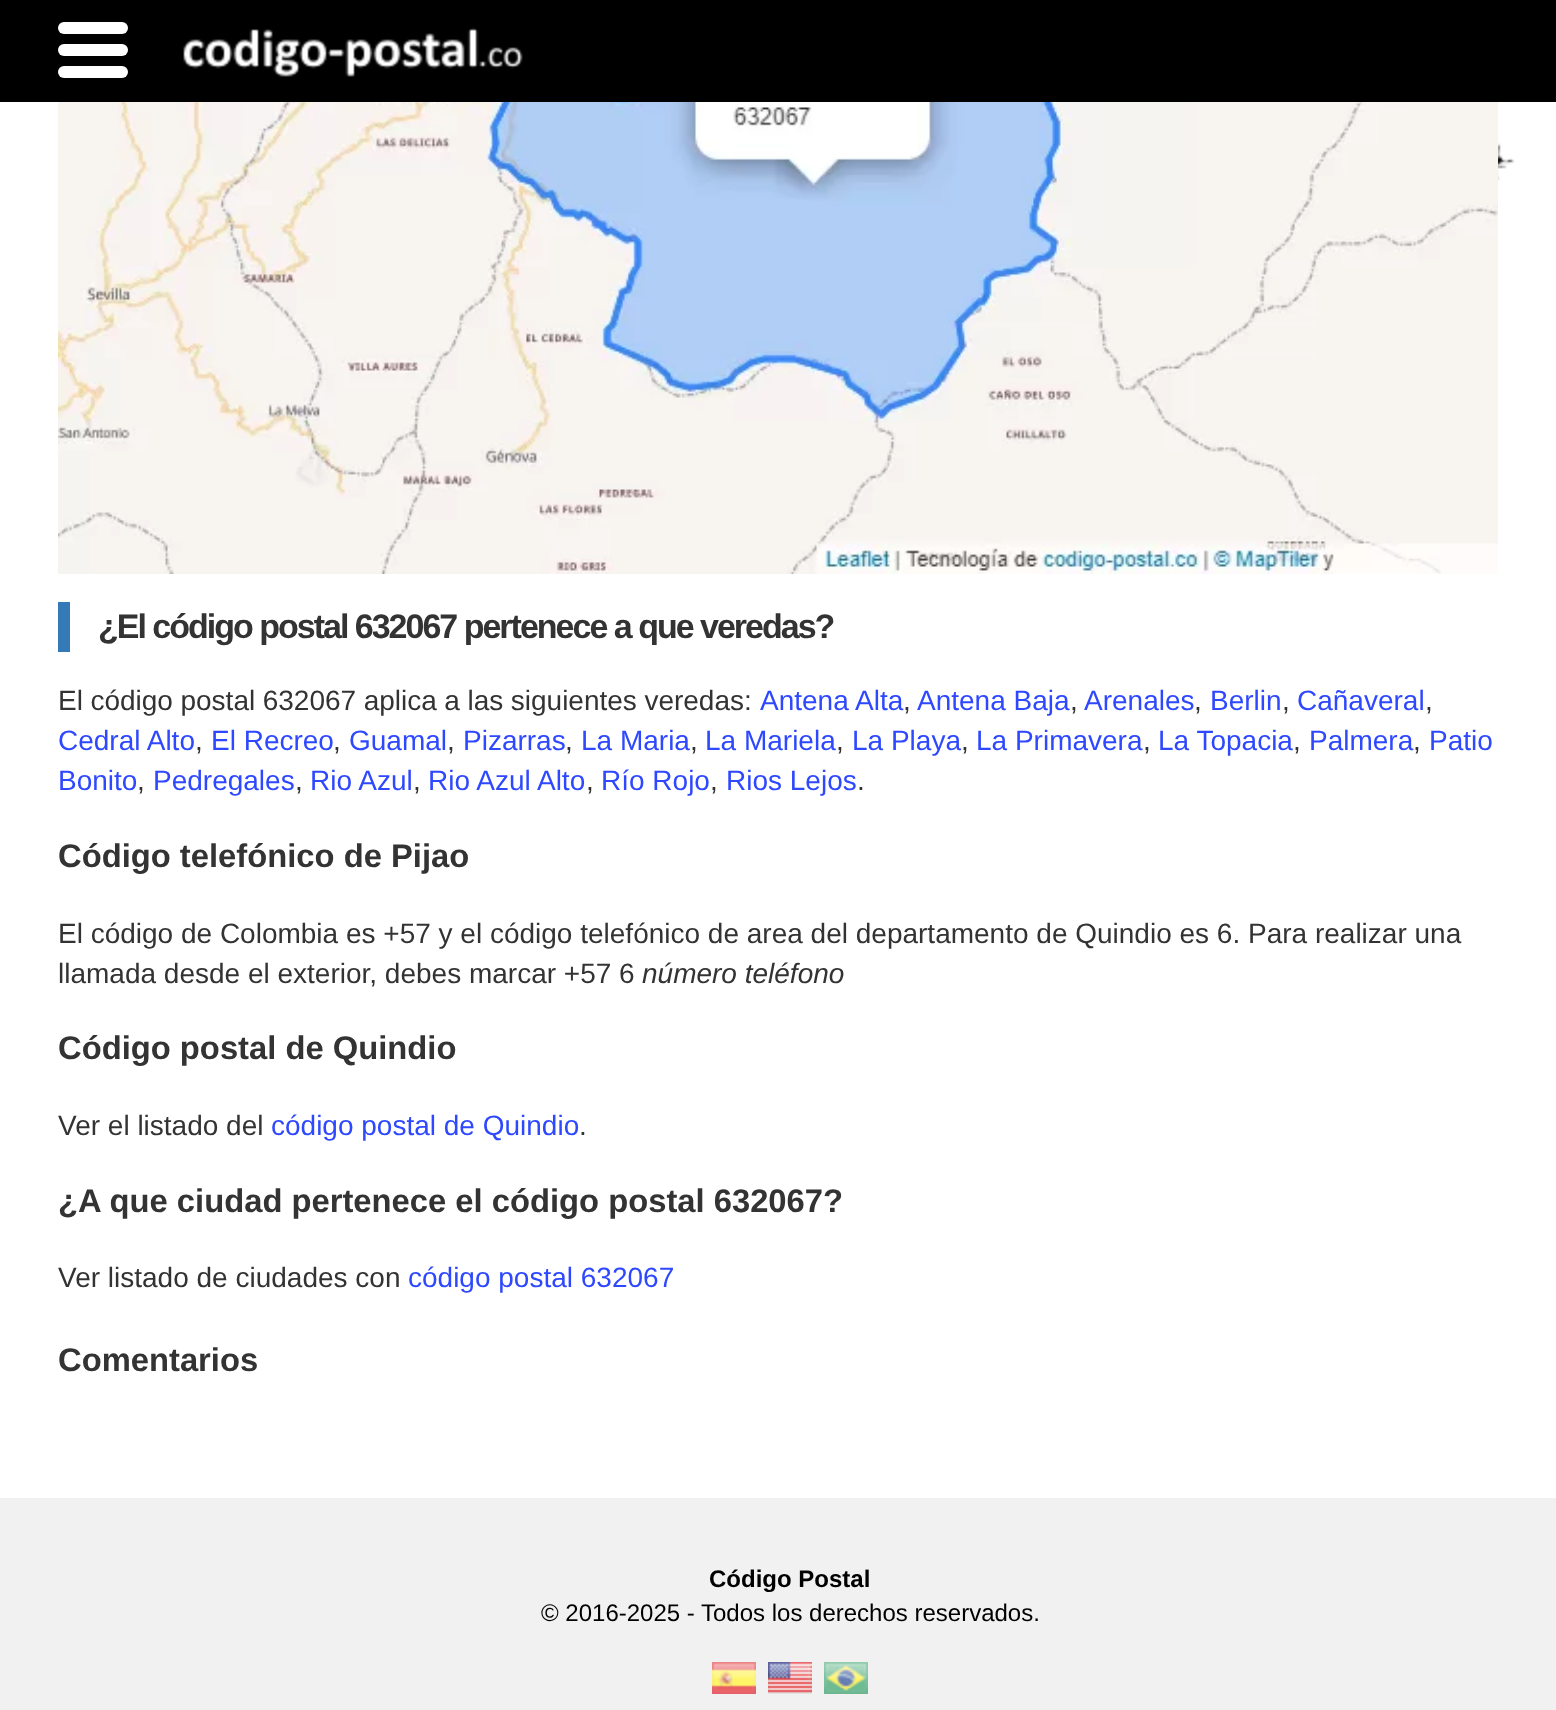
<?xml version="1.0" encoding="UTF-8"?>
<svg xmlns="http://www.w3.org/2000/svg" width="1556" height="1710">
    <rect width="100%" height="100%" fill="#FFFFFF"/>
    <rect x="0" y="0" width="1556" height="102" fill="#000000"/>
    <rect x="58" y="22" width="70" height="12" rx="6" fill="#FFFFFF"/>
    <rect x="58" y="44" width="70" height="12" rx="6" fill="#FFFFFF"/>
    <rect x="58" y="66" width="70" height="12" rx="6" fill="#FFFFFF"/>
    <image x="183" y="27" width="340" height="50" href="img_01.png"/>
    <image x="1498" y="143" width="17" height="38" href="img_02.png"/>
    <image x="58" y="102" width="1440" height="472" href="img_03.png"/>
    <rect x="58" y="602" width="12" height="50" fill="#337AB7"/>
    <text x="98" y="638" font-family="Liberation Sans" font-size="34" font-weight="700" letter-spacing="-2" fill="#333333">¿El código postal 632067 pertenece a que veredas?</text>
    <text x="58" y="710" word-spacing="-0.25" font-family="Liberation Sans" font-size="28" fill="#333333">El código postal 632067 aplica a las siguientes veredas:</text>
    <text x="760" y="710" font-family="Liberation Sans" font-size="28" fill="#2E48FF">Antena Alta</text>
    <text x="903" y="710" font-family="Liberation Sans" font-size="28" fill="#333333">,</text>
    <text x="917" y="710" font-family="Liberation Sans" font-size="28" fill="#2E48FF">Antena Baja</text>
    <text x="1070" y="710" font-family="Liberation Sans" font-size="28" fill="#333333">,</text>
    <text x="1084" y="710" font-family="Liberation Sans" font-size="28" fill="#2E48FF">Arenales</text>
    <text x="1194" y="710" font-family="Liberation Sans" font-size="28" fill="#333333">,</text>
    <text x="1210" y="710" font-family="Liberation Sans" font-size="28" fill="#2E48FF">Berlin</text>
    <text x="1282" y="710" font-family="Liberation Sans" font-size="28" fill="#333333">,</text>
    <text x="1297" y="710" font-family="Liberation Sans" font-size="28" fill="#2E48FF">Cañaveral</text>
    <text x="1425" y="710" font-family="Liberation Sans" font-size="28" fill="#333333">,</text>
    <text x="58" y="750" font-family="Liberation Sans" font-size="28" fill="#2E48FF">Cedral Alto</text>
    <text x="195" y="750" font-family="Liberation Sans" font-size="28" fill="#333333">,</text>
    <text x="211" y="750" font-family="Liberation Sans" font-size="28" fill="#2E48FF">El Recreo</text>
    <text x="333" y="750" font-family="Liberation Sans" font-size="28" fill="#333333">,</text>
    <text x="349" y="750" font-family="Liberation Sans" font-size="28" fill="#2E48FF">Guamal</text>
    <text x="447" y="750" font-family="Liberation Sans" font-size="28" fill="#333333">,</text>
    <text x="463" y="750" font-family="Liberation Sans" font-size="28" fill="#2E48FF">Pizarras</text>
    <text x="565" y="750" font-family="Liberation Sans" font-size="28" fill="#333333">,</text>
    <text x="581" y="750" font-family="Liberation Sans" font-size="28" fill="#2E48FF">La Maria</text>
    <text x="690" y="750" font-family="Liberation Sans" font-size="28" fill="#333333">,</text>
    <text x="705" y="750" font-family="Liberation Sans" font-size="28" fill="#2E48FF">La Mariela</text>
    <text x="836" y="750" font-family="Liberation Sans" font-size="28" fill="#333333">,</text>
    <text x="852" y="750" font-family="Liberation Sans" font-size="28" fill="#2E48FF">La Playa</text>
    <text x="961" y="750" font-family="Liberation Sans" font-size="28" fill="#333333">,</text>
    <text x="976" y="750" font-family="Liberation Sans" font-size="28" fill="#2E48FF">La Primavera</text>
    <text x="1143" y="750" font-family="Liberation Sans" font-size="28" fill="#333333">,</text>
    <text x="1158" y="750" font-family="Liberation Sans" font-size="28" fill="#2E48FF">La Topacia</text>
    <text x="1293" y="750" font-family="Liberation Sans" font-size="28" fill="#333333">,</text>
    <text x="1309" y="750" font-family="Liberation Sans" font-size="28" fill="#2E48FF">Palmera</text>
    <text x="1413" y="750" font-family="Liberation Sans" font-size="28" fill="#333333">,</text>
    <text x="1429" y="750" font-family="Liberation Sans" font-size="28" fill="#2E48FF">Patio</text>
    <text x="58" y="790" font-family="Liberation Sans" font-size="28" fill="#2E48FF">Bonito</text>
    <text x="137" y="790" font-family="Liberation Sans" font-size="28" fill="#333333">,</text>
    <text x="153" y="790" font-family="Liberation Sans" font-size="28" fill="#2E48FF">Pedregales</text>
    <text x="295" y="790" font-family="Liberation Sans" font-size="28" fill="#333333">,</text>
    <text x="310" y="790" font-family="Liberation Sans" font-size="28" fill="#2E48FF">Rio Azul</text>
    <text x="413" y="790" font-family="Liberation Sans" font-size="28" fill="#333333">,</text>
    <text x="428" y="790" font-family="Liberation Sans" font-size="28" fill="#2E48FF">Rio Azul Alto</text>
    <text x="586" y="790" font-family="Liberation Sans" font-size="28" fill="#333333">,</text>
    <text x="601" y="790" font-family="Liberation Sans" font-size="28" fill="#2E48FF">Río Rojo</text>
    <text x="710" y="790" font-family="Liberation Sans" font-size="28" fill="#333333">,</text>
    <text x="726" y="790" font-family="Liberation Sans" font-size="28" fill="#2E48FF">Rios Lejos</text>
    <text x="857" y="790" font-family="Liberation Sans" font-size="28" fill="#333333">.</text>
    <text x="58" y="867" font-family="Liberation Sans" font-size="32.75" font-weight="700" fill="#333333">Código telefónico de Pijao</text>
    <text font-family="Liberation Sans" font-size="28" fill="#333333">
        <tspan x="58" y="943">El código de Colombia es +57 y el código telefónico de area del departamento de Quindio es 6. Para realizar una</tspan>
        <tspan x="58" y="983">llamada desde el exterior, debes marcar +57 6</tspan>
    </text>
    <text x="642" y="983" font-family="Liberation Sans" font-size="28" font-style="italic" fill="#333333">número teléfono</text>
    <text x="58" y="1059" font-family="Liberation Sans" font-size="32.75" font-weight="700" fill="#333333">Código postal de Quindio</text>
    <text x="58" y="1135" font-family="Liberation Sans" font-size="28" fill="#333333">Ver el listado del</text>
    <text x="271" y="1135" font-family="Liberation Sans" font-size="28" fill="#2E48FF">código postal de Quindio</text>
    <text x="579" y="1135" font-family="Liberation Sans" font-size="28" fill="#333333">.</text>
    <text x="58" y="1212" font-family="Liberation Sans" font-size="32.75" font-weight="700" fill="#333333">¿A que ciudad pertenece el código postal 632067?</text>
    <text x="58" y="1287" font-family="Liberation Sans" font-size="28" fill="#333333">Ver listado de ciudades con</text>
    <text x="408" y="1287" font-family="Liberation Sans" font-size="28" fill="#2E48FF">código postal 632067</text>
    <text x="58" y="1371" font-family="Liberation Sans" font-size="32.75" font-weight="700" fill="#333333">Comentarios</text>
    <rect x="0" y="1498" width="1556" height="212" fill="#F1F1F1"/>
    <text x="709" y="1587" font-family="Liberation Sans" font-size="24" font-weight="700" fill="#000000">Código Postal</text>
    <text x="541" y="1621" font-family="Liberation Sans" font-size="24" fill="#000000">© 2016-2025 - Todos los derechos reservados.</text>
    <image x="712" y="1662" width="44" height="32" href="img_04.png"/>
    <image x="768" y="1662" width="44" height="32" href="img_05.png"/>
    <image x="824" y="1662" width="44" height="32" href="img_06.png"/>
</svg>
